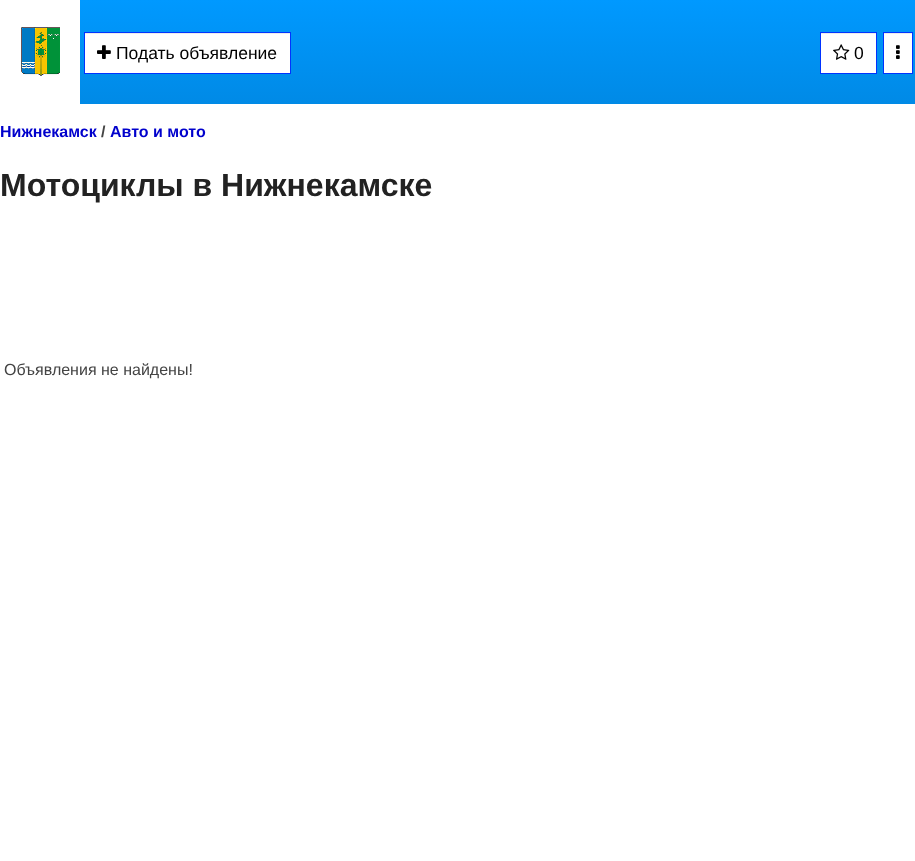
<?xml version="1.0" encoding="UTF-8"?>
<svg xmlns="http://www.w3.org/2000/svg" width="915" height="861">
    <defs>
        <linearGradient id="g1" gradientUnits="userSpaceOnUse" x1="0" y1="0" x2="0" y2="104"><stop offset="0" stop-color="#0099FF"/><stop offset="1" stop-color="#008AE6"/></linearGradient>
    </defs>
    <rect width="100%" height="100%" fill="#FFFFFF"/>
    <rect x="80" y="0" width="835" height="104" fill="url(#g1)"/>
    <image x="21" y="27" width="39" height="49" href="img_01.png"/>
    <rect x="85" y="34" width="205" height="39" fill="#FFFFFF"/>
    <rect x="85" y="33" width="205" height="1" fill="#ECECEC"/>
    <rect x="84.5" y="32.5" width="206" height="41" fill="none" stroke="#0033FF"/>
    <image x="97" y="45" width="14" height="14" href="img_02.png"/>
    <text x="116" y="59" font-family="Liberation Sans" font-size="17.5" fill="#000000">Подать объявление</text>
    <rect x="821" y="34" width="55" height="39" fill="#FFFFFF"/>
    <rect x="821" y="33" width="55" height="1" fill="#ECECEC"/>
    <rect x="820.5" y="32.5" width="56" height="41" fill="none" stroke="#0033FF"/>
    <image x="833" y="44" width="17" height="16" href="img_03.png"/>
    <text x="854" y="59" font-family="Liberation Sans" font-size="17.5" fill="#000000">0</text>
    <rect x="884" y="34" width="28" height="39" fill="#FFFFFF"/>
    <rect x="884" y="33" width="28" height="1" fill="#ECECEC"/>
    <rect x="883.5" y="32.5" width="29" height="41" fill="none" stroke="#0033FF"/>
    <image x="896" y="45" width="4" height="14" href="img_04.png"/>
    <text x="0" y="137" font-family="Liberation Sans" font-size="16" font-weight="700" fill="#0000CC">Нижнекамск</text>
    <text x="101" y="137" font-family="Liberation Sans" font-size="16" font-weight="700" fill="#444444">/</text>
    <text x="110" y="137" font-family="Liberation Sans" font-size="16" font-weight="700" fill="#0000CC">Авто и мото</text>
    <text x="0" y="196" font-family="Liberation Sans" font-size="32" font-weight="700" fill="#222222">Мотоциклы в Нижнекамске</text>
    <text x="4" y="375" font-family="Liberation Sans" font-size="16" fill="#444444">Объявления не найдены!</text>
</svg>
